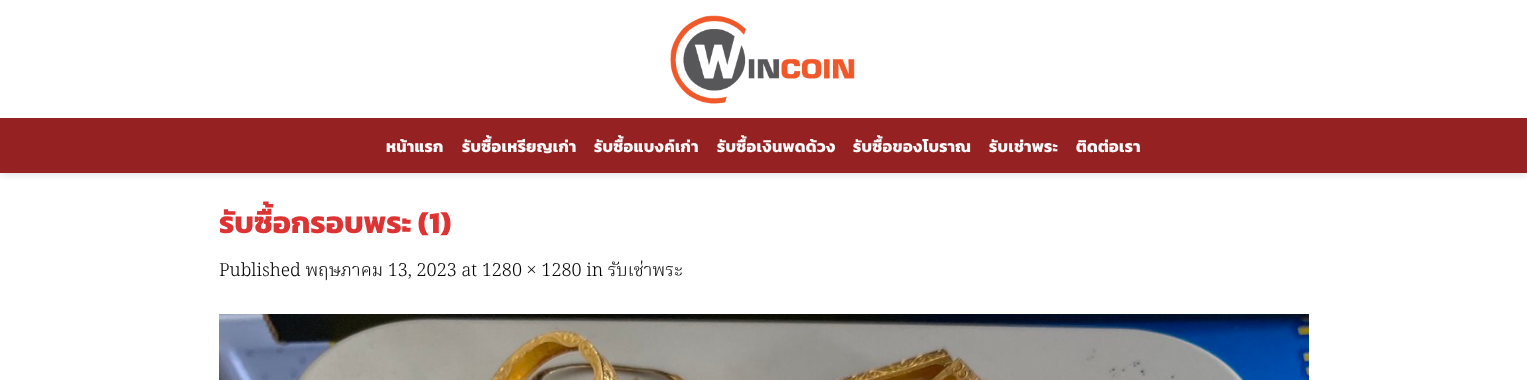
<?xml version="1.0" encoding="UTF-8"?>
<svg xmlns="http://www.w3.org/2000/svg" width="1527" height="380">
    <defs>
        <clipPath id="clip1"><rect x="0" y="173" width="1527" height="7"/></clipPath>
        <filter id="blur1" x="-50%" y="-200%" width="200%" height="500%"><feGaussianBlur stdDeviation="5"/></filter>
    </defs>
    <rect width="100%" height="100%" fill="#FFFFFF"/>
    <g clip-path="url(#clip1)">
        <rect x="1" y="1" width="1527" height="173" fill="#000000" fill-opacity="0.15" filter="url(#blur1)"/>
    </g>
    <image x="670" y="15" width="185" height="89" href="img_01.png"/>
    <rect x="0" y="118" width="1527" height="55" fill="#952122"/>
    <text x="386" y="152" font-family="Kanit" font-size="16.25" font-weight="700" letter-spacing="0.3" fill="#F9F9F9">หน้าแรก</text>
    <text x="462" y="152" font-family="Kanit" font-size="16.25" font-weight="700" letter-spacing="0.3" fill="#F9F9F9">รับซื้อเหรียญเก่า</text>
    <text x="594" y="152" font-family="Kanit" font-size="16.25" font-weight="700" letter-spacing="0.3" fill="#F9F9F9">รับซื้อแบงค์เก่า</text>
    <text x="717" y="152" font-family="Kanit" font-size="16.25" font-weight="700" letter-spacing="0.3" fill="#F9F9F9">รับซื้อเงินพดด้วง</text>
    <text x="853" y="152" font-family="Kanit" font-size="16.25" font-weight="700" letter-spacing="0.3" fill="#F9F9F9">รับซื้อของโบราณ</text>
    <text x="989" y="152" font-family="Kanit" font-size="16.25" font-weight="700" letter-spacing="0.3" fill="#F9F9F9">รับเช่าพระ</text>
    <text x="1076" y="152" font-family="Kanit" font-size="16.25" font-weight="700" letter-spacing="0.3" fill="#F9F9F9">ติดต่อเรา</text>
    <text x="219" y="233" font-family="Kanit" font-size="30.5" font-weight="700" fill="#DD3333">รับซื้อกรอบพระ (1)</text>
    <text x="219" y="276" font-family="Noto Serif Thai" font-size="18" font-weight="300" fill="#000000">Published พฤษภาคม 13, 2023 at 1280 × 1280 in รับเช่าพระ</text>
    <image x="219" y="314" width="1090" height="66" href="img_02.png"/>
</svg>
